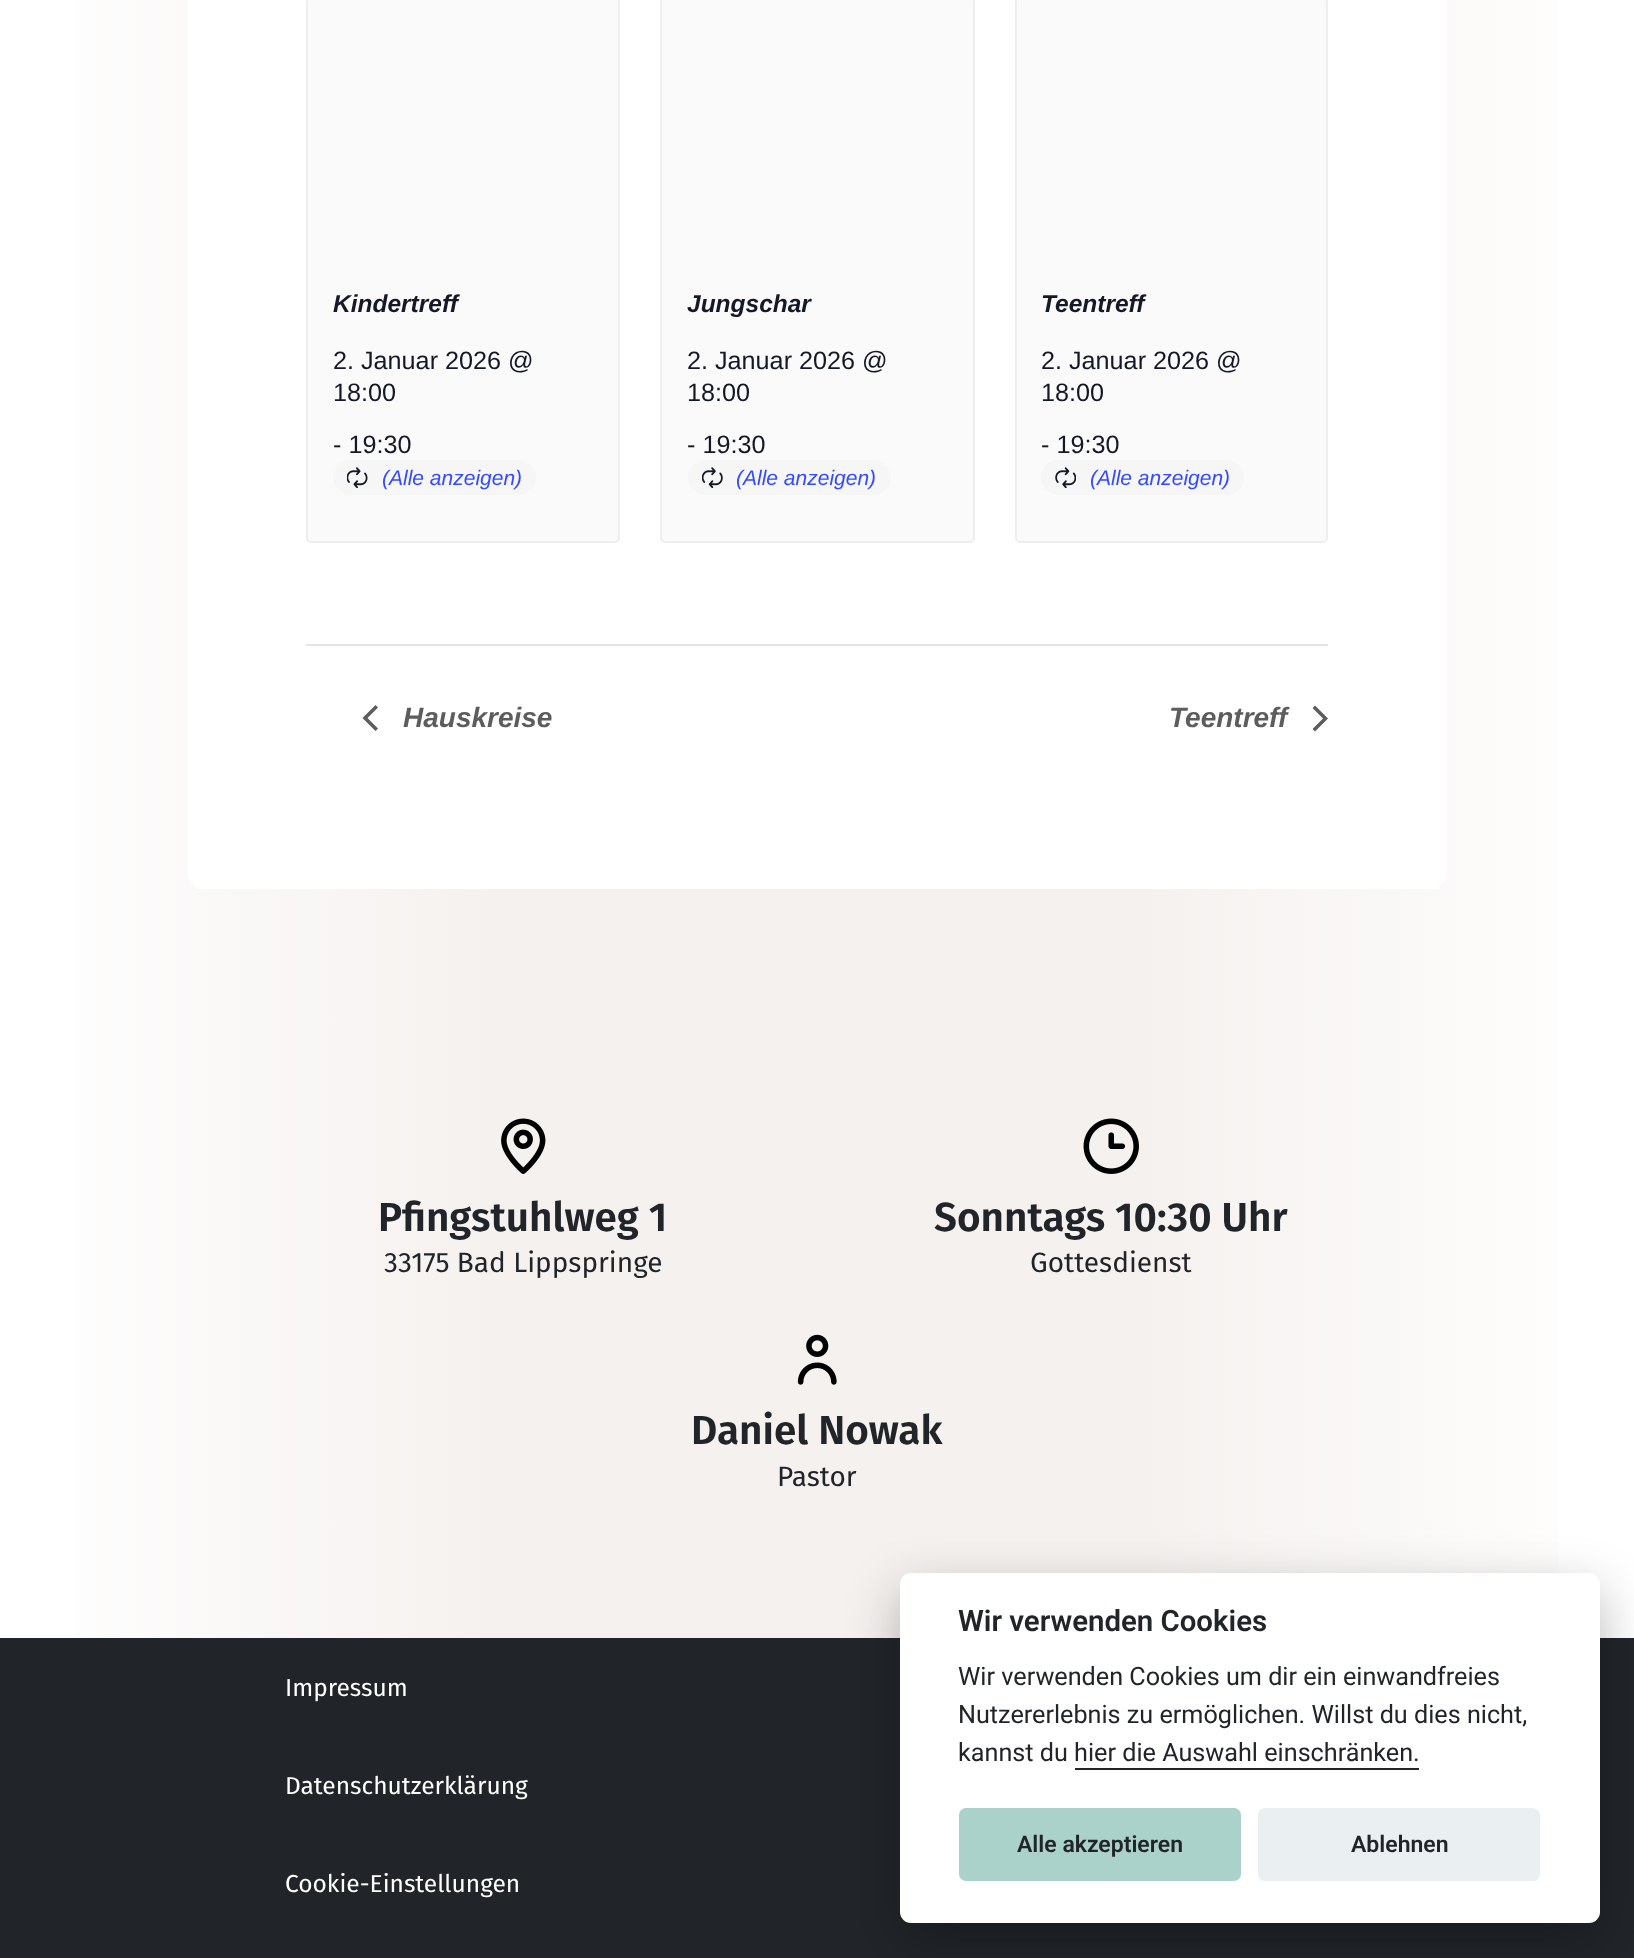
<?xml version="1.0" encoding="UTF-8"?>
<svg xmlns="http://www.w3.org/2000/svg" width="1634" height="1958">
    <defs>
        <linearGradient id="g1" gradientUnits="userSpaceOnUse" x1="0" y1="-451" x2="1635" y2="-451"><stop offset="0" stop-color="#FFFFFF"/><stop offset="0.3" stop-color="#F5F1EF"/><stop offset="0.7" stop-color="#F5F1EF"/><stop offset="1" stop-color="#FFFFFF"/></linearGradient>
        <clipPath id="clip1"><rect x="1313" y="705" width="15" height="27"/></clipPath>
        <filter id="blur1" x="-50%" y="-200%" width="200%" height="500%"><feGaussianBlur stdDeviation="26"/></filter>
    </defs>
    <rect width="100%" height="100%" fill="#FFFFFF"/>
    <rect x="77" y="0" width="1481" height="1638" fill="url(#g1)"/>
    <path d="M 187 -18 H 1447 V 871 C 1447 881 1439 889 1429 889 H 205 C 195 889 187 881 187 871 Z" fill="#FFFFFF"/>
    <rect x="196" y="886" width="1243" height="3" fill="#FFFFFF"/>
    <rect x="307" y="-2" width="312" height="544" rx="4" fill="#FAFAFA" stroke="#EEEEEE" stroke-width="2"/>
    <text x="333" y="312" font-family="Liberation Sans" font-size="24.5" font-weight="700" font-style="italic" fill="#141827">Kindertreff</text>
    <text font-family="Liberation Sans" font-size="25.2" fill="#141827">
        <tspan x="333" y="369">2. Januar 2026 @</tspan>
        <tspan x="333" y="401">18:00</tspan>
    </text>
    <text x="333" y="453" font-family="Liberation Sans" font-size="25.2" fill="#141827">- 19:30</text>
    <rect x="333" y="460" width="203" height="35" rx="17.5" fill="#F7F6F6"/>
    <image x="347" y="467" width="21" height="21" href="img_01.png"/>
    <text x="382" y="485" font-family="Liberation Sans" font-size="21" font-style="italic" fill="#334AFF">(Alle anzeigen)</text>
    <rect x="661" y="-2" width="313" height="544" rx="4" fill="#FAFAFA" stroke="#EEEEEE" stroke-width="2"/>
    <text x="687" y="312" font-family="Liberation Sans" font-size="24.5" font-weight="700" font-style="italic" fill="#141827">Jungschar</text>
    <text font-family="Liberation Sans" font-size="25.2" fill="#141827">
        <tspan x="687" y="369">2. Januar 2026 @</tspan>
        <tspan x="687" y="401">18:00</tspan>
    </text>
    <text x="687" y="453" font-family="Liberation Sans" font-size="25.2" fill="#141827">- 19:30</text>
    <rect x="688" y="460" width="203" height="35" rx="17.5" fill="#F7F6F6"/>
    <image x="702" y="467" width="21" height="21" href="img_02.png"/>
    <text x="736" y="485" font-family="Liberation Sans" font-size="21" font-style="italic" fill="#334AFF">(Alle anzeigen)</text>
    <rect x="1016" y="-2" width="311" height="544" rx="4" fill="#FAFAFA" stroke="#EEEEEE" stroke-width="2"/>
    <text x="1041" y="312" font-family="Liberation Sans" font-size="24.5" font-weight="700" font-style="italic" fill="#141827">Teentreff</text>
    <text font-family="Liberation Sans" font-size="25.2" fill="#141827">
        <tspan x="1041" y="369">2. Januar 2026 @</tspan>
        <tspan x="1041" y="401">18:00</tspan>
    </text>
    <text x="1041" y="453" font-family="Liberation Sans" font-size="25.2" fill="#141827">- 19:30</text>
    <rect x="1041" y="460" width="203" height="35" rx="17.5" fill="#F7F6F6"/>
    <image x="1055" y="467" width="21" height="21" href="img_03.png"/>
    <text x="1090" y="485" font-family="Liberation Sans" font-size="21" font-style="italic" fill="#334AFF">(Alle anzeigen)</text>
    <rect x="306" y="644" width="1022" height="2" fill="#E4E4E4"/>
    <path d="M 378 728.5 L 375.5 731 L 362.5 718 L 375.5 705 L 378 707.5 L 367.5 718 Z" fill="#5D5D5D"/>
    <text x="403" y="727" font-family="Liberation Sans" font-size="28" font-weight="700" font-style="italic" fill="#5D5D5D">Hauskreise</text>
    <text x="1169" y="727" font-family="Liberation Sans" font-size="28" font-weight="700" font-style="italic" fill="#5D5D5D">Teentreff</text>
    <g clip-path="url(#clip1)">
        <path d="M 1312.5 708 L 1315 705.5 L 1328 718.5 L 1315 731.5 L 1312.5 729 L 1323 718.5 Z" fill="#5D5D5D"/>
    </g>
    <image x="501" y="1118" width="45" height="56" href="img_04.png"/>
    <text x="378" y="1231" font-family="Fira Sans" font-size="40.5" font-weight="600" fill="#212529">Pfingstuhlweg 1</text>
    <text x="384" y="1272" font-family="Fira Sans" font-size="28" fill="#212529">33175 Bad Lippspringe</text>
    <image x="1083" y="1118" width="56" height="56" href="img_05.png"/>
    <text x="934" y="1231" font-family="Fira Sans" font-size="40.5" font-weight="600" fill="#212529">Sonntags 10:30 Uhr</text>
    <text x="1030" y="1272" font-family="Fira Sans" font-size="28" fill="#212529">Gottesdienst</text>
    <image x="797" y="1334" width="40" height="51" href="img_06.png"/>
    <text x="691" y="1444" font-family="Fira Sans" font-size="40.5" font-weight="600" fill="#212529">Daniel Nowak</text>
    <text x="777" y="1486" font-family="Fira Sans" font-size="28" fill="#212529">Pastor</text>
    <rect x="0" y="1638" width="1634" height="320" fill="#212529"/>
    <text x="285" y="1696" font-family="Fira Sans" font-size="24.5" fill="#FFFFFF">Impressum</text>
    <text x="285" y="1794" font-family="Fira Sans" font-size="24.5" fill="#FFFFFF">Datenschutzerklärung</text>
    <text x="285" y="1892" font-family="Fira Sans" font-size="24.5" fill="#FFFFFF">Cookie-Einstellungen</text>
    <rect x="900" y="1591" width="700" height="350" rx="11" fill="#020203" fill-opacity="0.28" filter="url(#blur1)"/>
    <rect x="900" y="1573" width="700" height="350" rx="11" fill="#FFFFFF"/>
    <text x="958" y="1631" font-family="Roboto" font-size="29.4" font-weight="600" fill="#212529">Wir verwenden Cookies</text>
    <text font-family="Roboto" font-size="25.2" fill="#212529">
        <tspan x="958" y="1685">Wir verwenden Cookies um dir ein einwandfreies</tspan>
        <tspan x="958" y="1723">Nutzererlebnis zu ermöglichen. Willst du dies nicht,</tspan>
        <tspan x="958" y="1761">kannst du hier die Auswahl einschränken.</tspan>
    </text>
    <rect x="1075" y="1768" width="344" height="2" fill="#212529"/>
    <rect x="959" y="1808" width="282" height="73" rx="7" fill="#AAD1CA"/>
    <text x="1017" y="1852" font-family="Roboto" font-size="23" font-weight="600" fill="#212529">Alle akzeptieren</text>
    <rect x="1258" y="1808" width="282" height="73" rx="7" fill="#EAEFF2"/>
    <text x="1351" y="1852" font-family="Roboto" font-size="23" font-weight="600" fill="#212529">Ablehnen</text>
</svg>
